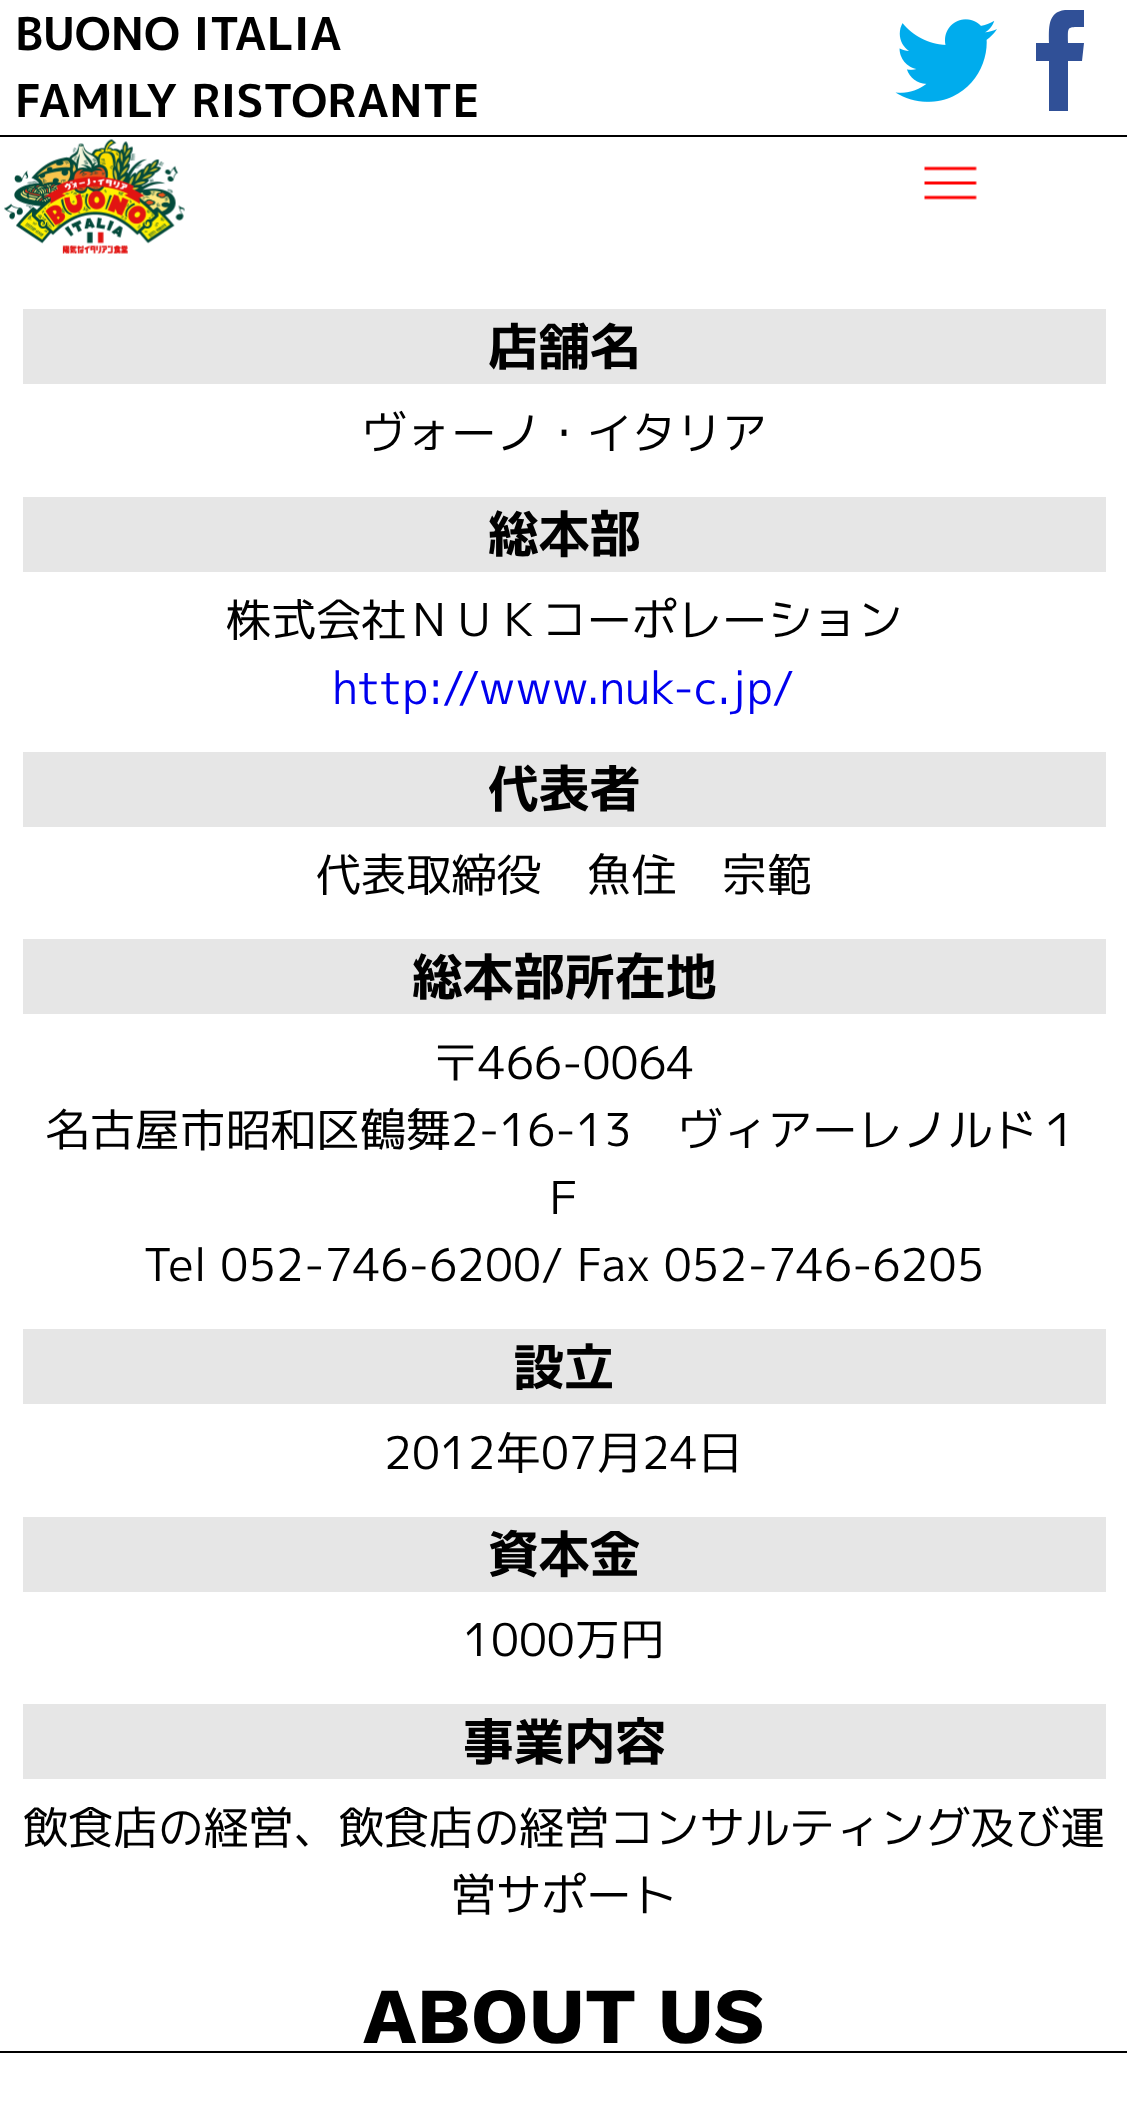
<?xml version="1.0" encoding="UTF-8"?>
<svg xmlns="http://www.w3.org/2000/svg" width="1127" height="2112">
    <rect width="100%" height="100%" fill="#FFFFFF"/>
    <rect x="0" y="135" width="1127" height="2" fill="#000000"/>
    <text font-family="'M PLUS 1p'" font-size="45.1" font-weight="700" fill="#000000">
        <tspan x="15" y="50">BUONO ITALIA</tspan>
        <tspan x="15" y="117">FAMILY RISTORANTE</tspan>
    </text>
    <image x="895" y="19" width="102" height="83" href="img_01.png"/>
    <path d="M 1068 111 H 1049 V 61 H 1036 V 43 H 1049 C 1049 29 1047 12 1065 10 H 1084 V 27 C 1066 27 1068 26 1068 43 H 1084 L 1082 61 H 1068 Z" fill="#305097"/>
    <image x="4" y="139" width="181" height="115" href="img_02.png"/>
    <image x="924" y="166" width="53" height="34" href="img_03.png"/>
    <rect x="23" y="309" width="1083" height="75" fill="#E6E6E6"/>
    <text x="488" y="365" font-family="'M PLUS 1p'" font-size="50.75" font-weight="700" fill="#000000">店舗名</text>
    <text x="361" y="449" font-family="'M PLUS 1p'" font-size="45.1" fill="#000000">ヴォーノ・イタリア</text>
    <rect x="23" y="497" width="1083" height="75" fill="#E6E6E6"/>
    <text x="488" y="552" font-family="'M PLUS 1p'" font-size="50.75" font-weight="700" fill="#000000">総本部</text>
    <text x="226" y="636" font-family="'M PLUS 1p'" font-size="45.1" fill="#000000">株式会社ＮＵＫコーポレーション</text>
    <text x="332" y="704" font-family="'M PLUS 1p'" font-size="45.1" fill="#0000EE">http://www.nuk-c.jp/</text>
    <rect x="23" y="752" width="1083" height="75" fill="#E6E6E6"/>
    <text x="488" y="807" font-family="'M PLUS 1p'" font-size="50.75" font-weight="700" fill="#000000">代表者</text>
    <text x="316" y="891" font-family="'M PLUS 1p'" font-size="45.1" fill="#000000">代表取締役　魚住　宗範</text>
    <rect x="23" y="939" width="1083" height="75" fill="#E6E6E6"/>
    <text x="412" y="995" font-family="'M PLUS 1p'" font-size="50.75" font-weight="700" fill="#000000">総本部所在地</text>
    <text x="433" y="1079" font-family="'M PLUS 1p'" font-size="45.1" fill="#000000">〒466-0064</text>
    <text x="45" y="1146" font-family="'M PLUS 1p'" font-size="45.1" fill="#000000">名古屋市昭和区鶴舞2-16-13　ヴィアーレノルド１</text>
    <text x="541" y="1214" font-family="'M PLUS 1p'" font-size="45.1" fill="#000000">Ｆ</text>
    <text x="143" y="1281" font-family="'M PLUS 1p'" font-size="45.1" fill="#000000">Tel 052-746-6200/ Fax 052-746-6205</text>
    <rect x="23" y="1329" width="1083" height="75" fill="#E6E6E6"/>
    <text x="513" y="1385" font-family="'M PLUS 1p'" font-size="50.75" font-weight="700" fill="#000000">設立</text>
    <text x="384" y="1469" font-family="'M PLUS 1p'" font-size="45.1" fill="#000000">2012年07月24日</text>
    <rect x="23" y="1517" width="1083" height="75" fill="#E6E6E6"/>
    <text x="488" y="1572" font-family="'M PLUS 1p'" font-size="50.75" font-weight="700" fill="#000000">資本金</text>
    <text x="463" y="1656" font-family="'M PLUS 1p'" font-size="45.1" fill="#000000">1000万円</text>
    <rect x="23" y="1704" width="1083" height="75" fill="#E6E6E6"/>
    <text x="463" y="1760" font-family="'M PLUS 1p'" font-size="50.75" font-weight="700" fill="#000000">事業内容</text>
    <text x="23" y="1844" font-family="'M PLUS 1p'" font-size="45.1" fill="#000000">飲食店の経営、飲食店の経営コンサルティング及び運</text>
    <text x="451" y="1911" font-family="'M PLUS 1p'" font-size="45.1" fill="#000000">営サポート</text>
    <text x="363" y="2043" font-family="Work Sans" font-size="79" font-weight="700" fill="#000000">ABOUT US</text>
    <rect x="0" y="2051" width="1127" height="2" fill="#000000"/>
</svg>
